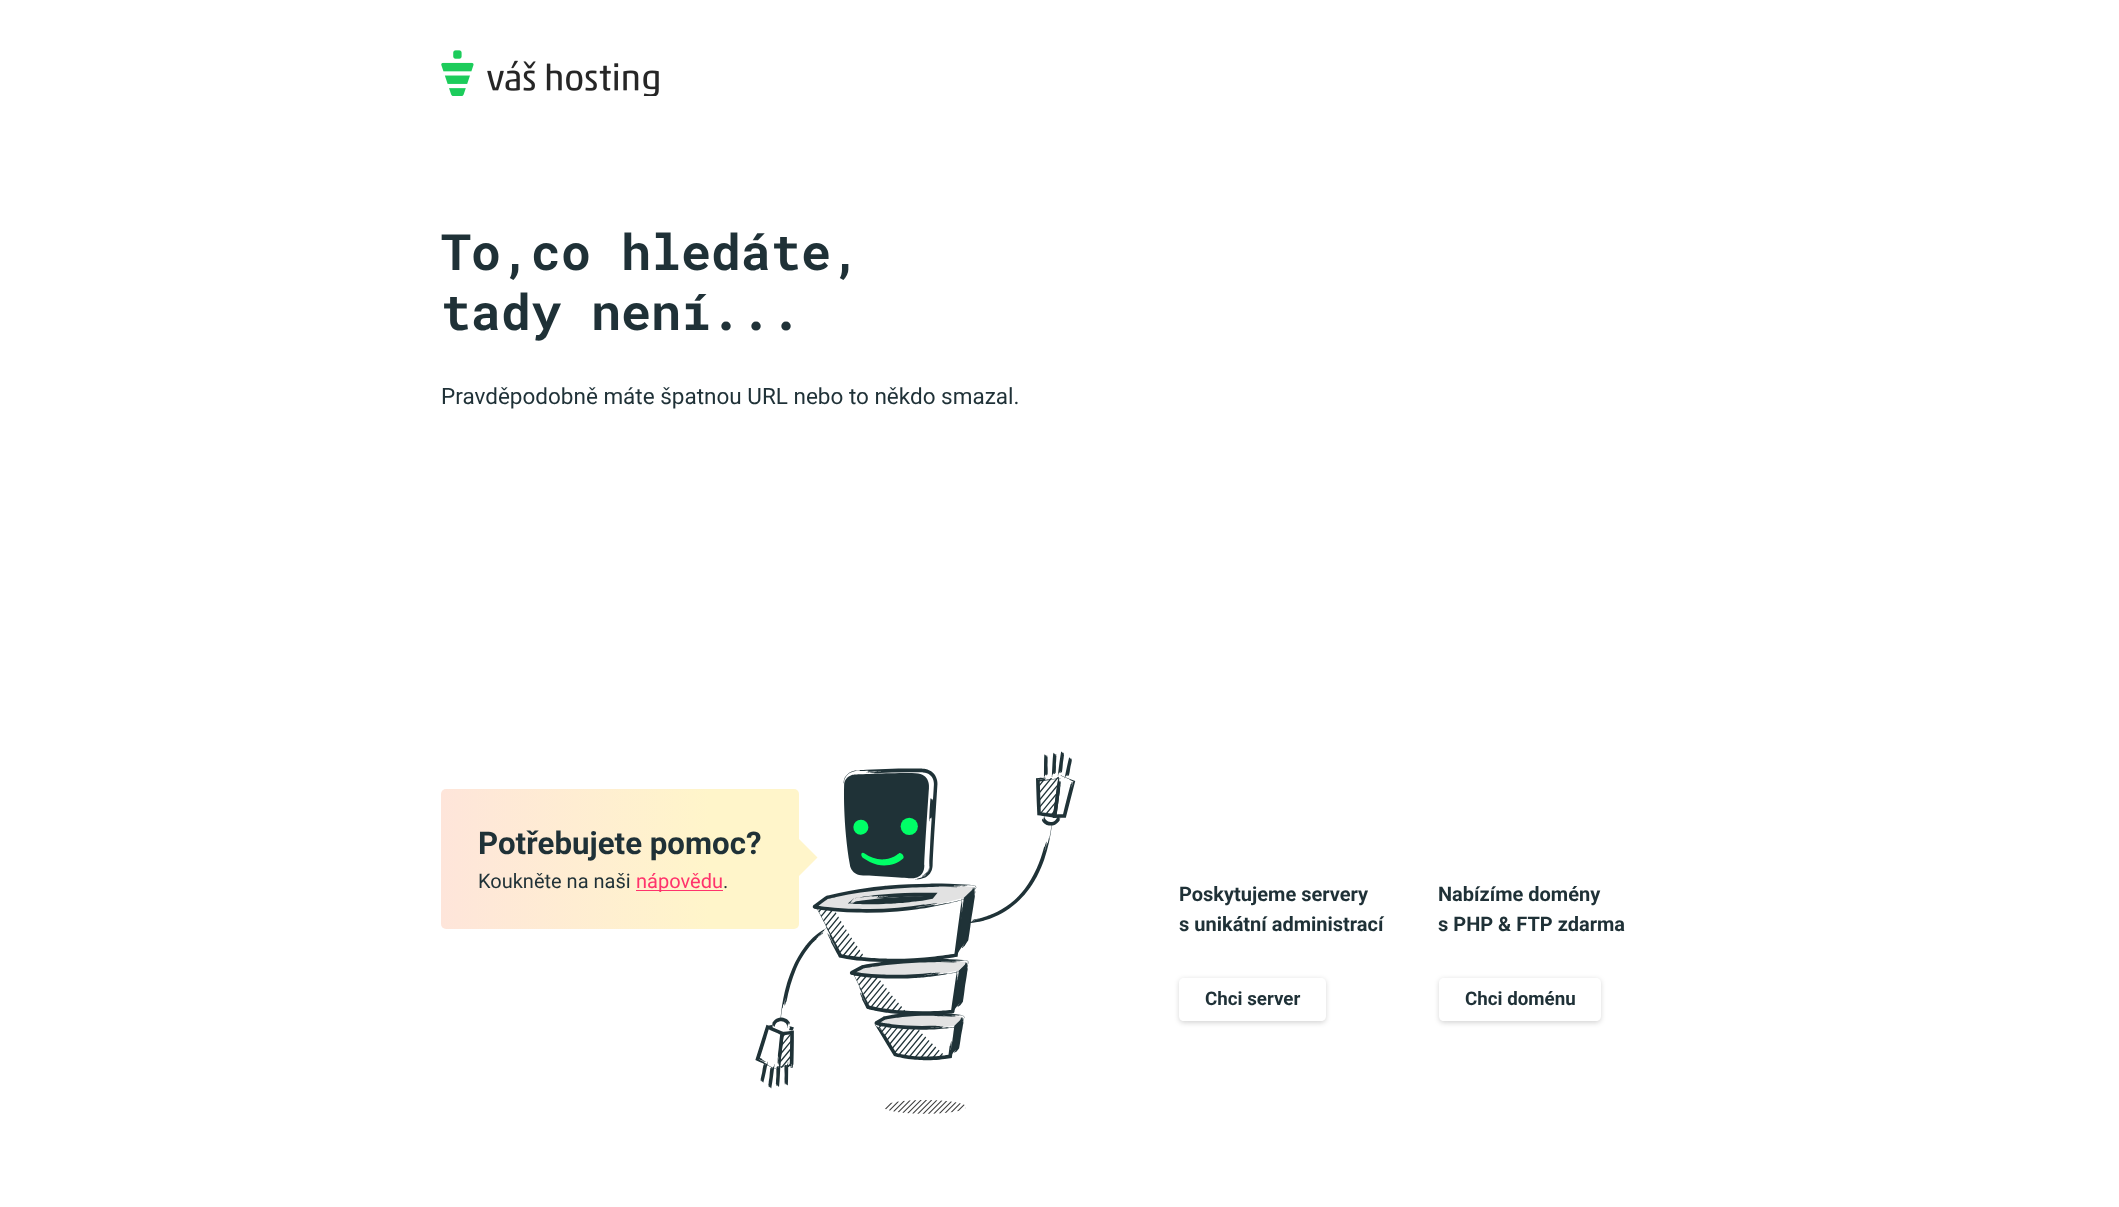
<?xml version="1.0" encoding="UTF-8"?>
<svg xmlns="http://www.w3.org/2000/svg" width="2119" height="1207">
    <defs>
        <linearGradient id="g1" gradientUnits="userSpaceOnUse" x1="441" y1="859" x2="799" y2="859"><stop offset="0" stop-color="#FEE5DA"/><stop offset="0.75" stop-color="#FFF5CA"/></linearGradient>
        <clipPath id="clip1"><path d="M 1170 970 H 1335 V 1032 H 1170 Z M 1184 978 H 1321 C 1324 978 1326 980 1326 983 V 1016 C 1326 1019 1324 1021 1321 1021 H 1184 C 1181 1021 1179 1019 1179 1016 V 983 C 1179 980 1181 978 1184 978 Z" clip-rule="evenodd"/></clipPath>
        <filter id="blur1" x="-50%" y="-200%" width="200%" height="500%"><feGaussianBlur stdDeviation="2.5"/></filter>
        <clipPath id="clip2"><path d="M 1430 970 H 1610 V 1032 H 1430 Z M 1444 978 H 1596 C 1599 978 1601 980 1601 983 V 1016 C 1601 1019 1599 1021 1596 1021 H 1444 C 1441 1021 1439 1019 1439 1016 V 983 C 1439 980 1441 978 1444 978 Z" clip-rule="evenodd"/></clipPath>
    </defs>
    <rect width="100%" height="100%" fill="#FFFFFF"/>
    <image x="441" y="50" width="218" height="46" href="img_01.png"/>
    <text font-family="Roboto Mono" font-size="50" font-weight="700" fill="#1F3137">
        <tspan x="441" y="270">To,co hledáte,</tspan>
        <tspan x="441" y="330">tady není...</tspan>
    </text>
    <text x="441" y="404" font-family="Roboto" font-size="22.5" fill="#1F3137">Pravděpodobně máte špatnou URL nebo to někdo smazal.</text>
    <rect x="441" y="789" width="358" height="140" rx="5" fill="url(#g1)"/>
    <image x="755" y="751" width="321" height="338" href="img_02.png"/>
    <text x="478" y="854" font-family="Roboto" font-size="31.25" font-weight="700" fill="#1F3137">Potřebujete pomoc?</text>
    <path d="M 799 876 V 839 L 817.5 857.5 Z" fill="#FFF5CA"/>
    <text x="478" y="888" font-family="Roboto" font-size="20" fill="#1F3137">Koukněte na naši</text>
    <rect x="636" y="890" width="87" height="1" fill="#FF336C"/>
    <text x="636" y="888" font-family="Roboto" font-size="20" fill="#FF336C">nápovědu</text>
    <text x="723" y="888" font-family="Roboto" font-size="20" fill="#1F3137">.</text>
    <image x="885" y="1100" width="81" height="14" href="img_03.png"/>
    <text font-family="Roboto" font-size="20" font-weight="700" fill="#1F3137">
        <tspan x="1179" y="901">Poskytujeme servery</tspan>
        <tspan x="1179" y="931">s unikátní administrací</tspan>
    </text>
    <g clip-path="url(#clip1)">
        <rect x="1179" y="979" width="147" height="44" rx="5" fill="#000000" fill-opacity="0.16" filter="url(#blur1)"/>
    </g>
    <text x="1205" y="1005" font-family="Roboto" font-size="18.75" font-weight="700" fill="#1F3137">Chci server</text>
    <text font-family="Roboto" font-size="20" font-weight="700" fill="#1F3137">
        <tspan x="1438" y="901">Nabízíme domény</tspan>
        <tspan x="1438" y="931">s PHP &amp; FTP zdarma</tspan>
    </text>
    <g clip-path="url(#clip2)">
        <rect x="1439" y="979" width="162" height="44" rx="5" fill="#000000" fill-opacity="0.16" filter="url(#blur1)"/>
    </g>
    <text x="1465" y="1005" font-family="Roboto" font-size="18.75" font-weight="700" fill="#1F3137">Chci doménu</text>
</svg>
